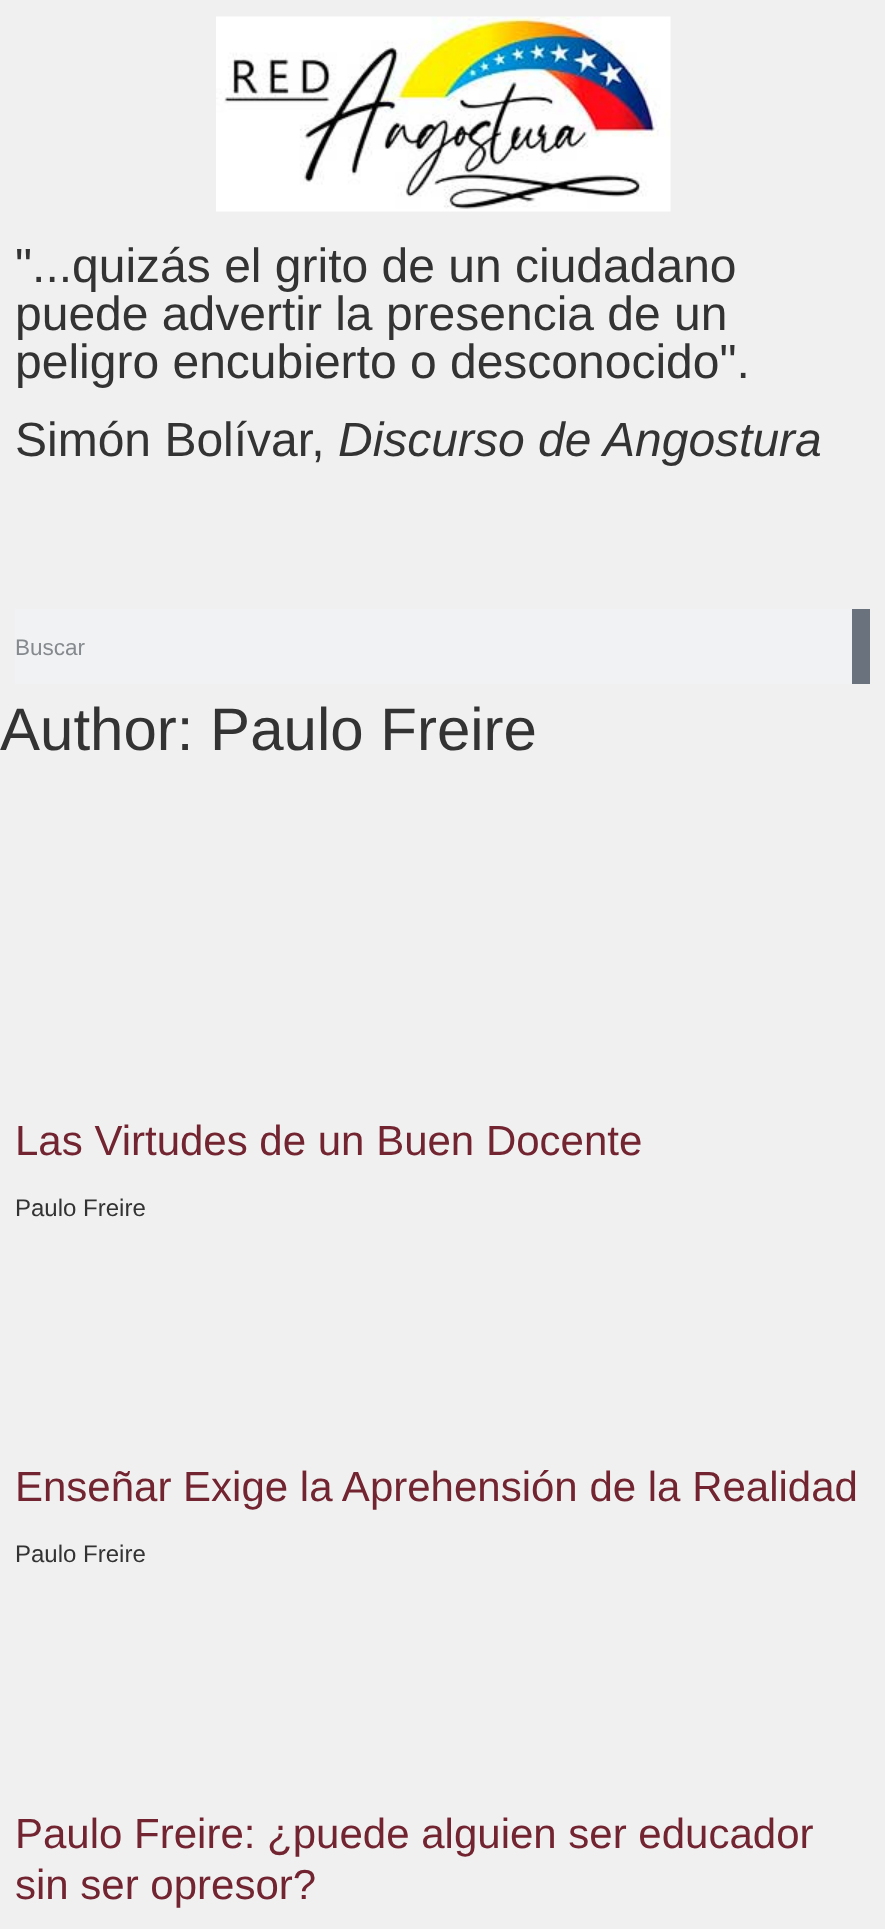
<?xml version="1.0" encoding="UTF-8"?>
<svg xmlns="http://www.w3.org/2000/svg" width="885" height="1929">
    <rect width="100%" height="100%" fill="#F0F0F0"/>
    <image x="216" y="16" width="455" height="196" href="img_01.png"/>
    <text font-family="Liberation Sans" font-size="48" fill="#333333">
        <tspan x="15" y="282">"...quizás el grito de un ciudadano</tspan>
        <tspan x="15" y="330">puede advertir la presencia de un</tspan>
        <tspan x="15" y="378">peligro encubierto o desconocido".</tspan>
        <tspan x="15" y="456">Simón Bolívar,</tspan>
    </text>
    <text x="338" y="456" font-family="Liberation Sans" font-size="48" font-style="italic" fill="#333333">Discurso de Angostura</text>
    <rect x="15" y="609" width="837" height="75" fill="#F1F2F3"/>
    <text x="15" y="655" font-family="Liberation Sans" font-size="22.5" fill="#868A8E">Buscar</text>
    <rect x="852" y="609" width="18" height="75" fill="#69727D"/>
    <text x="0" y="750" font-family="Liberation Sans" font-size="60" fill="#333333">Author: Paulo Freire</text>
    <text x="15" y="1155" font-family="Liberation Sans" font-size="42" fill="#722531">Las Virtudes de un Buen Docente</text>
    <text x="15" y="1216" font-family="Liberation Sans" font-size="24" fill="#333333">Paulo Freire</text>
    <text x="15" y="1501" font-family="Liberation Sans" font-size="42" fill="#722531">Enseñar Exige la Aprehensión de la Realidad</text>
    <text x="15" y="1562" font-family="Liberation Sans" font-size="24" fill="#333333">Paulo Freire</text>
    <text font-family="Liberation Sans" font-size="42" fill="#722531">
        <tspan x="15" y="1848">Paulo Freire: ¿puede alguien ser educador</tspan>
        <tspan x="15" y="1899">sin ser opresor?</tspan>
    </text>
</svg>
